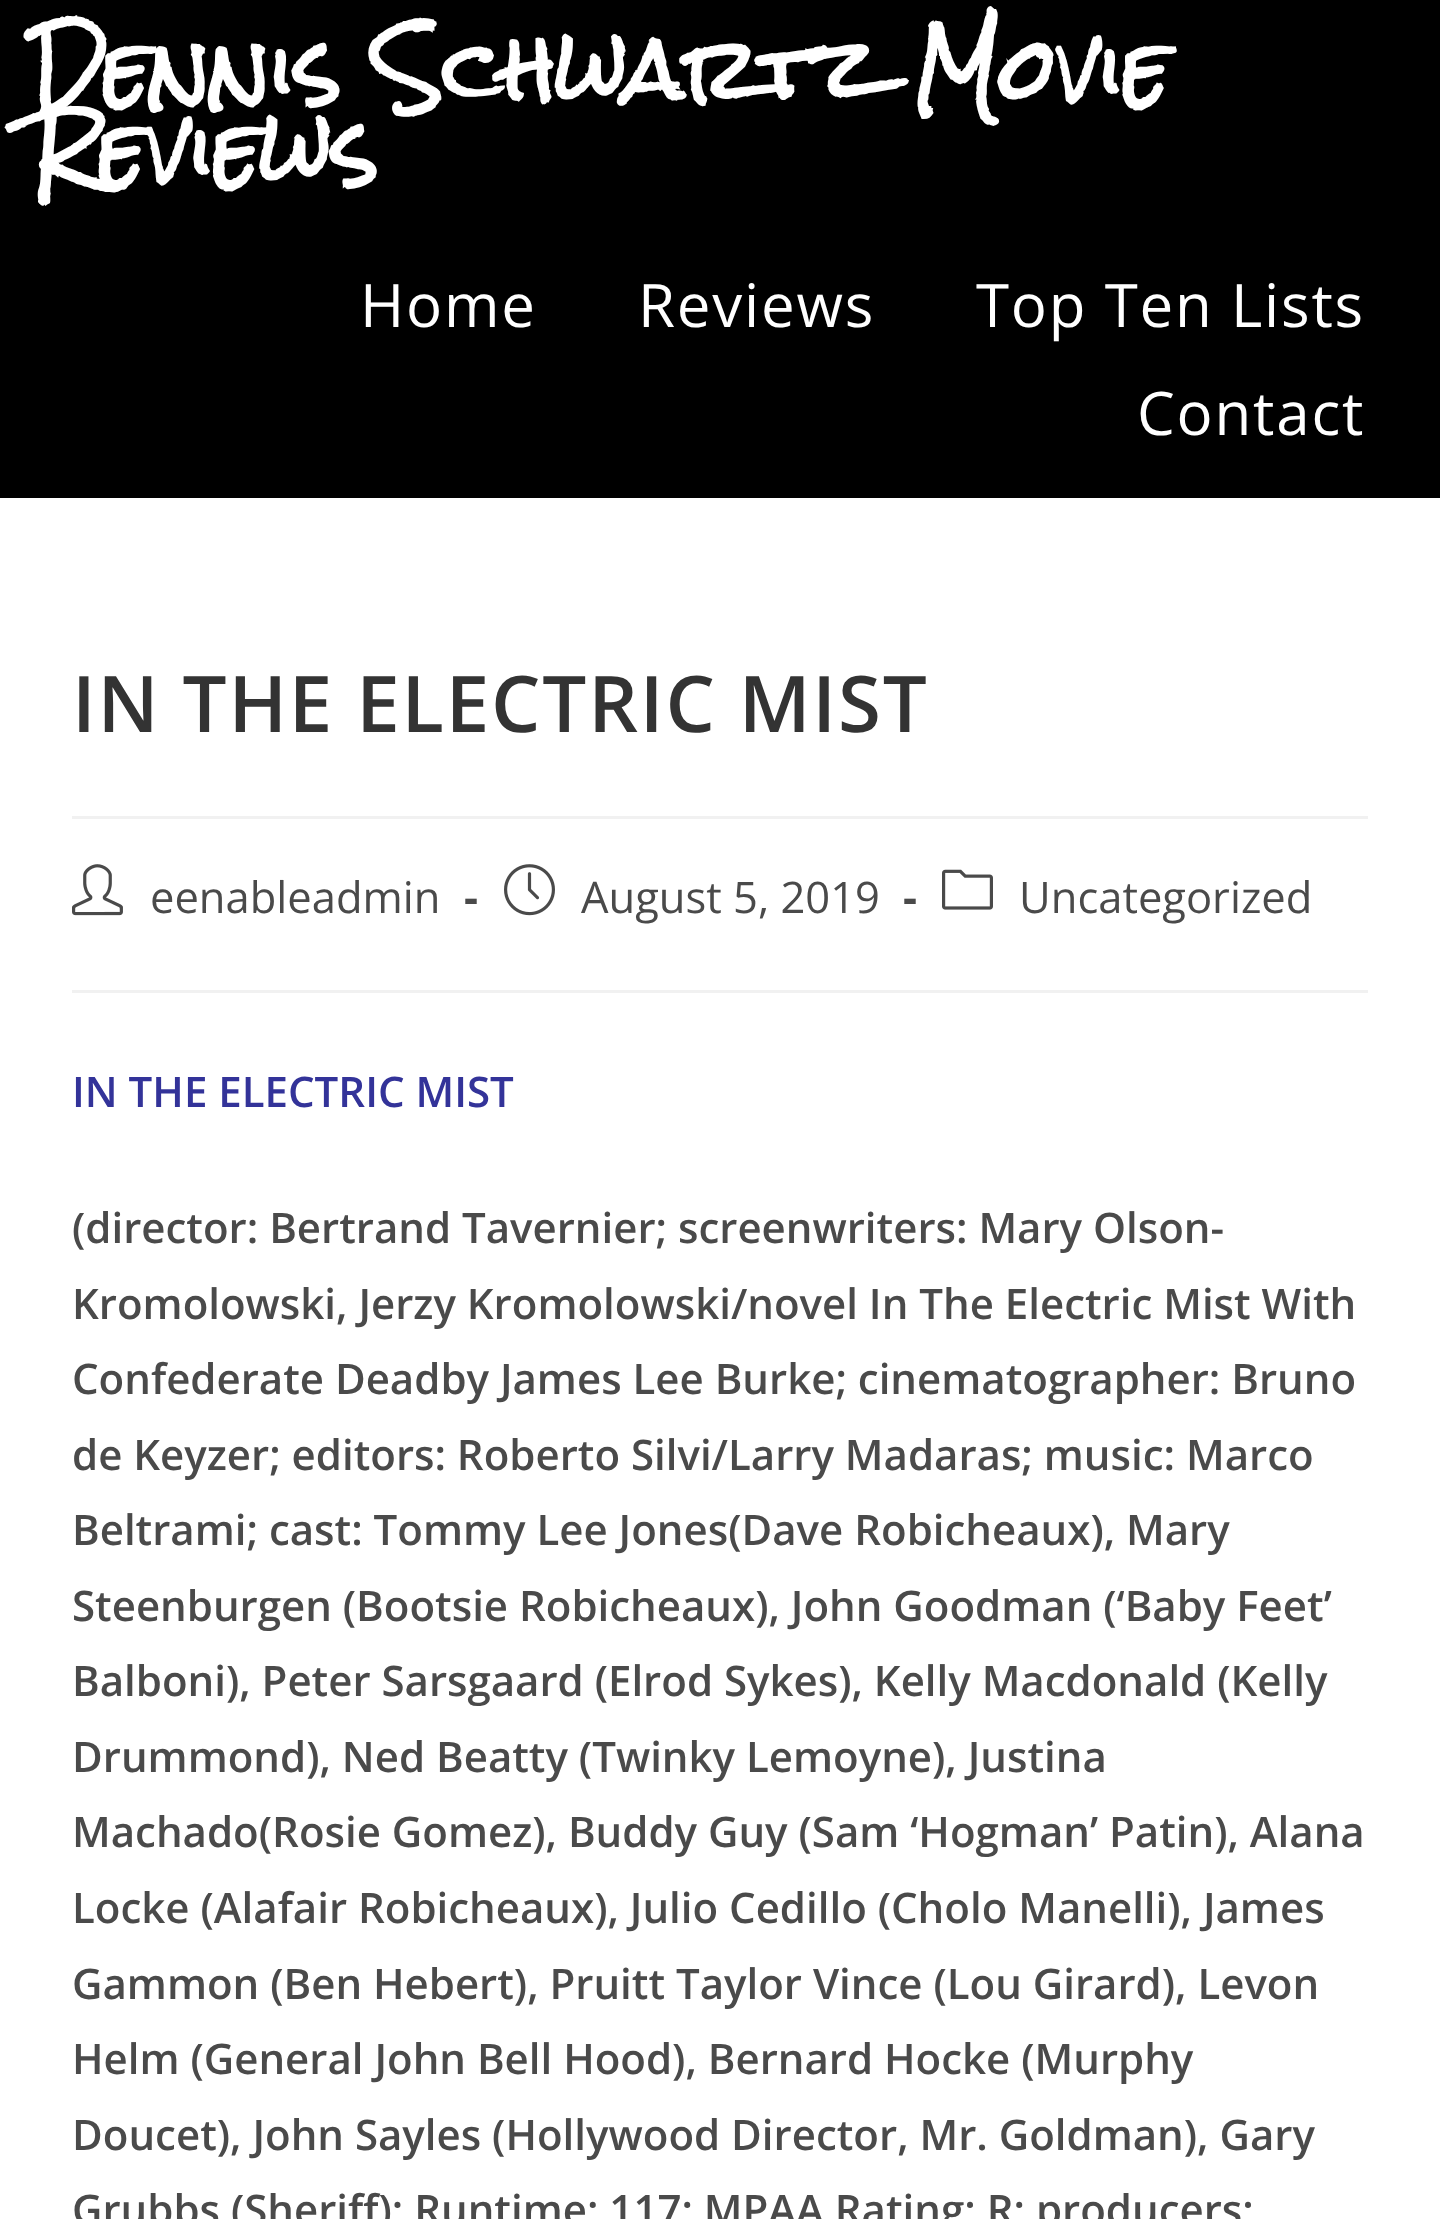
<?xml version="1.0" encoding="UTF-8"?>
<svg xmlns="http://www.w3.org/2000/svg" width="1440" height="2219">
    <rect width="100%" height="100%" fill="#FFFFFF"/>
    <rect x="0" y="0" width="1440" height="498" fill="#000000"/>
    <text font-family="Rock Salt" font-size="81" font-weight="700" fill="#FFFFFF">
        <tspan x="30" y="102">Dennis Schwartz Movie</tspan>
        <tspan x="30" y="183">Reviews</tspan>
    </text>
    <text x="360" y="327" font-family="Open Sans" font-size="60" letter-spacing="1.8" fill="#FFFFFF">Home</text>
    <text x="638" y="327" font-family="Open Sans" font-size="60" letter-spacing="1.8" fill="#FFFFFF">Reviews</text>
    <text x="976" y="327" font-family="Open Sans" font-size="60" letter-spacing="1.8" fill="#FFFFFF">Top Ten Lists</text>
    <text x="1137" y="435" font-family="Open Sans" font-size="60" letter-spacing="1.8" fill="#FFFFFF">Contact</text>
    <rect x="72" y="816" width="1296" height="3" fill="#F1F1F1"/>
    <text x="72" y="732" font-family="Open Sans" font-size="78" font-weight="600" letter-spacing="1.8" fill="#333333">IN THE ELECTRIC MIST</text>
    <rect x="72" y="990" width="1296" height="3" fill="#F1F1F1"/>
    <image x="72" y="864" width="51" height="52" href="img_01.png"/>
    <text x="150" y="913" font-family="Open Sans" font-size="43.5" fill="#4A4A4A">eenableadmin</text>
    <text x="464" y="913" font-family="Open Sans" font-size="43.5" font-weight="700" fill="#4A4A4A">-</text>
    <image x="504" y="864" width="51" height="52" href="img_02.png"/>
    <text x="581" y="913" font-family="Open Sans" font-size="43.5" fill="#4A4A4A">August 5, 2019</text>
    <text x="903" y="913" font-family="Open Sans" font-size="43.5" font-weight="700" fill="#4A4A4A">-</text>
    <image x="942" y="869" width="51" height="41" href="img_03.png"/>
    <text x="1019" y="913" font-family="Open Sans" font-size="43.5" fill="#4A4A4A">Uncategorized</text>
    <text x="72" y="1107" font-family="Open Sans" font-size="42" font-weight="600" fill="#333399">IN THE ELECTRIC MIST</text>
    <text font-family="Open Sans" font-size="42" font-weight="600" fill="#4A4A4A">
        <tspan x="72" y="1243">(director: Bertrand Tavernier; screenwriters: Mary Olson-</tspan>
        <tspan x="72" y="1319">Kromolowski, Jerzy Kromolowski/novel In The Electric Mist With</tspan>
        <tspan x="72" y="1394">Confederate Deadby James Lee Burke; cinematographer: Bruno</tspan>
        <tspan x="72" y="1470">de Keyzer; editors: Roberto Silvi/Larry Madaras; music: Marco</tspan>
        <tspan x="72" y="1545">Beltrami; cast: Tommy Lee Jones(Dave Robicheaux), Mary</tspan>
        <tspan x="72" y="1621">Steenburgen (Bootsie Robicheaux), John Goodman (‘Baby Feet’</tspan>
        <tspan x="72" y="1696">Balboni), Peter Sarsgaard (Elrod Sykes), Kelly Macdonald (Kelly</tspan>
        <tspan x="72" y="1772">Drummond), Ned Beatty (Twinky Lemoyne), Justina</tspan>
        <tspan x="72" y="1847">Machado(Rosie Gomez), Buddy Guy (Sam ‘Hogman’ Patin), Alana</tspan>
        <tspan x="72" y="1923">Locke (Alafair Robicheaux), Julio Cedillo (Cholo Manelli), James</tspan>
        <tspan x="72" y="1999">Gammon (Ben Hebert), Pruitt Taylor Vince (Lou Girard), Levon</tspan>
        <tspan x="72" y="2074">Helm (General John Bell Hood), Bernard Hocke (Murphy</tspan>
        <tspan x="72" y="2150">Doucet), John Sayles (Hollywood Director, Mr. Goldman), Gary</tspan>
        <tspan x="72" y="2225">Grubbs (Sheriff); Runtime: 117; MPAA Rating: R; producers:</tspan>
    </text>
</svg>
